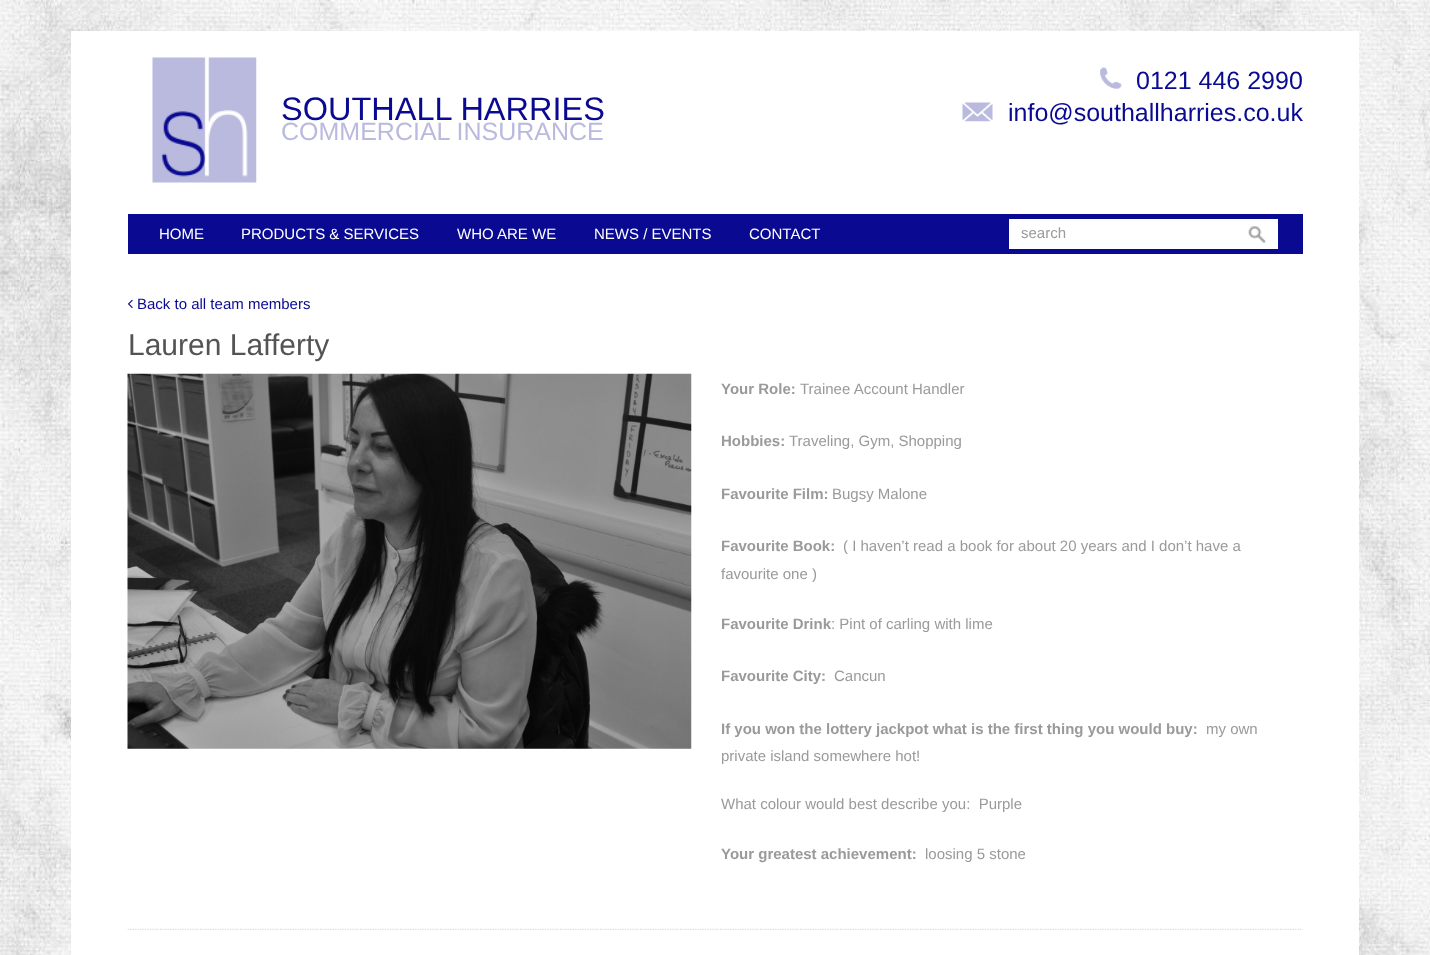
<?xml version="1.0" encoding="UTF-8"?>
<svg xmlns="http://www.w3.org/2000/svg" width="1430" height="955">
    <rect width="100%" height="100%" fill="#FFFFFF"/>
    <image x="0" y="0" width="1430" height="955" href="img_01.png"/>
    <rect x="71" y="31" width="1288" height="924" fill="#FFFFFF"/>
    <image x="152" y="57" width="105" height="126" href="img_02.png"/>
    <text x="281" y="120" font-family="Liberation Sans" font-size="32.5" fill="#090A91">SOUTHALL HARRIES</text>
    <text x="281" y="140" font-family="Liberation Sans" font-size="25" fill="#B9BADE">COMMERCIAL INSURANCE</text>
    <image x="1100" y="67" width="22" height="22" href="img_03.png"/>
    <text x="1136" y="89" font-family="Liberation Sans" font-size="25" fill="#090A91">0121 446 2990</text>
    <image x="962" y="102" width="31" height="20" href="img_04.png"/>
    <text x="1008" y="121" font-family="Liberation Sans" font-size="25" fill="#090A91">info@southallharries.co.uk</text>
    <rect x="128" y="214" width="1175" height="40" fill="#090991"/>
    <text x="159" y="239" font-family="Liberation Sans" font-size="15" fill="#FFFFFF">HOME</text>
    <text x="241" y="239" font-family="Liberation Sans" font-size="15" fill="#FFFFFF">PRODUCTS &amp; SERVICES</text>
    <text x="457" y="239" font-family="Liberation Sans" font-size="15" fill="#FFFFFF">WHO ARE WE</text>
    <text x="594" y="239" font-family="Liberation Sans" font-size="15" fill="#FFFFFF">NEWS / EVENTS</text>
    <text x="749" y="239" font-family="Liberation Sans" font-size="15" fill="#FFFFFF">CONTACT</text>
    <rect x="1009" y="219" width="269" height="30" fill="#FFFFFF"/>
    <image x="1248" y="226" width="18" height="17" href="img_05.png"/>
    <text x="1021" y="238" font-family="Liberation Sans" font-size="15" fill="#9A9A9A">search</text>
    <image x="127" y="299" width="6" height="9" href="img_06.png"/>
    <text x="137" y="309" font-family="Liberation Sans" font-size="15" fill="#090A91">Back to all team members</text>
    <text x="128" y="355" font-family="Liberation Sans" font-size="30" fill="#545454">Lauren Lafferty</text>
    <image x="127" y="373" width="565" height="376" href="img_07.png"/>
    <text x="721" y="394" font-family="Liberation Sans" font-size="15" font-weight="700" fill="#9A9A9A">Your Role:</text>
    <text x="800" y="394" font-family="Liberation Sans" font-size="15" fill="#9A9A9A">Trainee Account Handler</text>
    <text x="721" y="446" font-family="Liberation Sans" font-size="15" font-weight="700" fill="#9A9A9A">Hobbies:</text>
    <text x="789" y="446" font-family="Liberation Sans" font-size="15" fill="#9A9A9A">Traveling, Gym, Shopping</text>
    <text x="721" y="499" font-family="Liberation Sans" font-size="15" font-weight="700" fill="#9A9A9A">Favourite Film:</text>
    <text x="832" y="499" font-family="Liberation Sans" font-size="15" fill="#9A9A9A">Bugsy Malone</text>
    <text x="721" y="551" font-family="Liberation Sans" font-size="15" font-weight="700" fill="#9A9A9A">Favourite Book:</text>
    <text x="843" y="551" font-family="Liberation Sans" font-size="15" fill="#9A9A9A">( I haven’t read a book for about 20 years and I don’t have a</text>
    <text x="721" y="579" font-family="Liberation Sans" font-size="15" fill="#9A9A9A">favourite one )</text>
    <text x="721" y="629" font-family="Liberation Sans" font-size="15" font-weight="700" fill="#9A9A9A">Favourite Drink</text>
    <text x="831" y="629" font-family="Liberation Sans" font-size="15" fill="#9A9A9A">: Pint of carling with lime</text>
    <text x="721" y="681" font-family="Liberation Sans" font-size="15" font-weight="700" fill="#9A9A9A">Favourite City:</text>
    <text x="834" y="681" font-family="Liberation Sans" font-size="15" fill="#9A9A9A">Cancun</text>
    <text x="721" y="734" font-family="Liberation Sans" font-size="15" font-weight="700" fill="#9A9A9A">If you won the lottery jackpot what is the first thing you would buy:</text>
    <text x="1206" y="734" font-family="Liberation Sans" font-size="15" fill="#9A9A9A">my own</text>
    <text x="721" y="761" font-family="Liberation Sans" font-size="15" fill="#9A9A9A">private island somewhere hot!</text>
    <text x="721" y="809" font-family="Liberation Sans" font-size="15" fill="#9A9A9A" xml:space="preserve">What colour would best describe you:  Purple</text>
    <text x="721" y="859" font-family="Liberation Sans" font-size="15" font-weight="700" fill="#9A9A9A">Your greatest achievement:</text>
    <text x="925" y="859" font-family="Liberation Sans" font-size="15" fill="#9A9A9A">loosing 5 stone</text>
    <image x="127" y="928" width="1176" height="2" href="img_08.png"/>
</svg>
